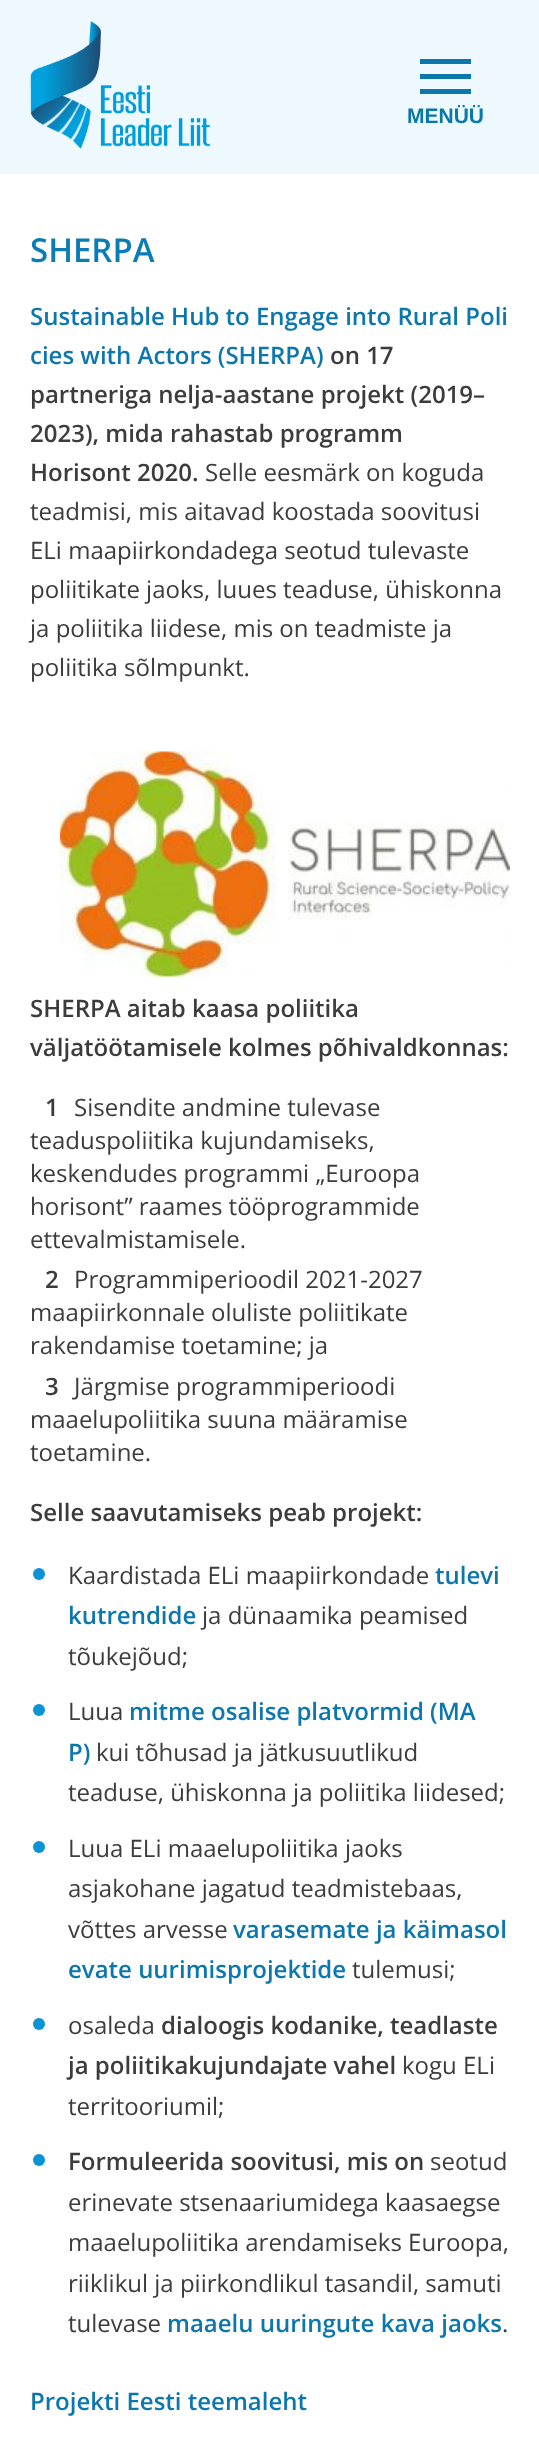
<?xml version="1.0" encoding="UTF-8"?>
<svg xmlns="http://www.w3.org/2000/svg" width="539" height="2464">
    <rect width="100%" height="100%" fill="#FFFFFF"/>
    <rect x="0" y="0" width="539" height="174" fill="#EDF8FF"/>
    <image x="30" y="21" width="180" height="128" href="img_01.png"/>
    <rect x="420" y="74" width="51" height="5" fill="#0B77AD"/>
    <rect x="420" y="59" width="51" height="5" fill="#0B77AD"/>
    <rect x="420" y="89" width="51" height="5" fill="#0B77AD"/>
    <text x="407" y="123" font-family="Liberation Sans" font-size="21" font-weight="700" fill="#0B77AD">MENÜÜ</text>
    <text x="30" y="262" font-family="Open Sans" font-size="33" font-weight="600" fill="#0A7CB6">SHERPA</text>
    <text font-family="Open Sans" font-size="24" font-weight="600" fill="#0B77AD">
        <tspan x="30" y="325">Sustainable Hub to Engage into Rural Poli</tspan>
        <tspan x="30" y="364">cies with Actors (SHERPA)</tspan>
    </text>
    <text x="330" y="364" font-family="Open Sans" font-size="24" font-weight="600" fill="#3C3C3C">on 17</text>
    <text font-family="Open Sans" font-size="24" font-weight="600" fill="#3C3C3C">
        <tspan x="30" y="403">partneriga nelja-aastane projekt (2019–</tspan>
        <tspan x="30" y="442">2023), mida rahastab programm</tspan>
        <tspan x="30" y="481">Horisont 2020.</tspan>
    </text>
    <text x="205" y="481" font-family="Open Sans" font-size="24" fill="#3C3C3C">Selle eesmärk on koguda</text>
    <text font-family="Open Sans" font-size="24" fill="#3C3C3C">
        <tspan x="30" y="520">teadmisi, mis aitavad koostada soovitusi</tspan>
        <tspan x="30" y="559">ELi maapiirkondadega seotud tulevaste</tspan>
        <tspan x="30" y="598">poliitikate jaoks, luues teaduse, ühiskonna</tspan>
        <tspan x="30" y="637">ja poliitika liidese, mis on teadmiste ja</tspan>
        <tspan x="30" y="676">poliitika sõlmpunkt.</tspan>
    </text>
    <image x="60" y="751" width="450" height="226" href="img_02.png"/>
    <text font-family="Open Sans" font-size="24" font-weight="600" fill="#3C3C3C">
        <tspan x="30" y="1017">SHERPA aitab kaasa poliitika</tspan>
        <tspan x="30" y="1056">väljatöötamisele kolmes põhivaldkonnas:</tspan>
    </text>
    <text x="45" y="1116" font-family="Open Sans" font-size="24" font-weight="600" fill="#3C3C3C">1</text>
    <text x="74" y="1116" font-family="Open Sans" font-size="24" fill="#3C3C3C">Sisendite andmine tulevase</text>
    <text font-family="Open Sans" font-size="24" fill="#3C3C3C">
        <tspan x="30" y="1149">teaduspoliitika kujundamiseks,</tspan>
        <tspan x="30" y="1182">keskendudes programmi „Euroopa</tspan>
        <tspan x="30" y="1215">horisont” raames tööprogrammide</tspan>
        <tspan x="30" y="1248">ettevalmistamisele.</tspan>
    </text>
    <text x="45" y="1288" font-family="Open Sans" font-size="24" font-weight="600" fill="#3C3C3C">2</text>
    <text x="74" y="1288" font-family="Open Sans" font-size="24" fill="#3C3C3C">Programmiperioodil 2021-2027</text>
    <text font-family="Open Sans" font-size="24" fill="#3C3C3C">
        <tspan x="30" y="1321">maapiirkonnale oluliste poliitikate</tspan>
        <tspan x="30" y="1354">rakendamise toetamine; ja</tspan>
    </text>
    <text x="45" y="1395" font-family="Open Sans" font-size="24" font-weight="600" fill="#3C3C3C">3</text>
    <text x="74" y="1395" font-family="Open Sans" font-size="24" fill="#3C3C3C">Järgmise programmiperioodi</text>
    <text font-family="Open Sans" font-size="24" fill="#3C3C3C">
        <tspan x="30" y="1428">maaelupoliitika suuna määramise</tspan>
        <tspan x="30" y="1461">toetamine.</tspan>
    </text>
    <text x="30" y="1521" font-family="Open Sans" font-size="24" font-weight="600" fill="#3C3C3C">Selle saavutamiseks peab projekt:</text>
    <circle cx="39" cy="1574" r="6" fill="#0C92D6"/>
    <text x="68" y="1584" font-family="Open Sans" font-size="24" fill="#3C3C3C">Kaardistada ELi maapiirkondade</text>
    <text x="435" y="1584" font-family="Open Sans" font-size="24" font-weight="600" fill="#0B77AD">tulevi</text>
    <text x="68" y="1624" font-family="Open Sans" font-size="24" font-weight="600" fill="#0B77AD">kutrendide</text>
    <text x="202" y="1624" font-family="Open Sans" font-size="24" fill="#3C3C3C">ja dünaamika peamised</text>
    <text x="68" y="1665" font-family="Open Sans" font-size="24" fill="#3C3C3C">tõukejõud;</text>
    <circle cx="39" cy="1710" r="6" fill="#0C92D6"/>
    <text x="68" y="1720" font-family="Open Sans" font-size="24" fill="#3C3C3C">Luua</text>
    <text x="129" y="1720" font-family="Open Sans" font-size="24" font-weight="600" fill="#0B77AD">mitme osalise platvormid (MA</text>
    <text x="68" y="1761" font-family="Open Sans" font-size="24" font-weight="600" fill="#0B77AD">P)</text>
    <text x="96" y="1761" font-family="Open Sans" font-size="24" fill="#3C3C3C">kui tõhusad ja jätkusuutlikud</text>
    <text x="68" y="1801" font-family="Open Sans" font-size="24" fill="#3C3C3C">teaduse, ühiskonna ja poliitika liidesed;</text>
    <circle cx="39" cy="1847" r="6" fill="#0C92D6"/>
    <text font-family="Open Sans" font-size="24" fill="#3C3C3C">
        <tspan x="68" y="1857">Luua ELi maaelupoliitika jaoks</tspan>
        <tspan x="68" y="1897">asjakohane jagatud teadmistebaas,</tspan>
        <tspan x="68" y="1938">võttes arvesse</tspan>
    </text>
    <text x="233" y="1938" font-family="Open Sans" font-size="24" font-weight="600" fill="#0B77AD">varasemate ja käimasol</text>
    <text x="68" y="1978" font-family="Open Sans" font-size="24" font-weight="600" fill="#0B77AD">evate uurimisprojektide</text>
    <text x="352" y="1978" font-family="Open Sans" font-size="24" fill="#3C3C3C">tulemusi;</text>
    <circle cx="39" cy="2024" r="6" fill="#0C92D6"/>
    <text x="68" y="2034" font-family="Open Sans" font-size="24" fill="#3C3C3C">osaleda</text>
    <text x="161" y="2034" font-family="Open Sans" font-size="24" font-weight="600" fill="#3C3C3C">dialoogis kodanike, teadlaste</text>
    <text x="68" y="2074" font-family="Open Sans" font-size="24" font-weight="600" fill="#3C3C3C">ja poliitikakujundajate vahel</text>
    <text x="402" y="2074" font-family="Open Sans" font-size="24" fill="#3C3C3C">kogu ELi</text>
    <text x="68" y="2115" font-family="Open Sans" font-size="24" fill="#3C3C3C">territooriumil;</text>
    <circle cx="39" cy="2160" r="6" fill="#0C92D6"/>
    <text x="68" y="2170" font-family="Open Sans" font-size="24" font-weight="600" fill="#3C3C3C">Formuleerida soovitusi, mis on</text>
    <text x="430" y="2170" font-family="Open Sans" font-size="24" fill="#3C3C3C">seotud</text>
    <text font-family="Open Sans" font-size="24" fill="#3C3C3C">
        <tspan x="68" y="2211">erinevate stsenaariumidega kaasaegse</tspan>
        <tspan x="68" y="2251">maaelupoliitika arendamiseks Euroopa,</tspan>
        <tspan x="68" y="2292">riiklikul ja piirkondlikul tasandil, samuti</tspan>
        <tspan x="68" y="2332">tulevase</tspan>
    </text>
    <text x="167" y="2332" font-family="Open Sans" font-size="24" font-weight="600" fill="#0B77AD">maaelu uuringute kava jaoks</text>
    <text x="502" y="2332" font-family="Open Sans" font-size="24" fill="#3C3C3C">.</text>
    <text x="30" y="2410" font-family="Open Sans" font-size="24" font-weight="600" fill="#0B77AD">Projekti Eesti teemaleht</text>
</svg>
